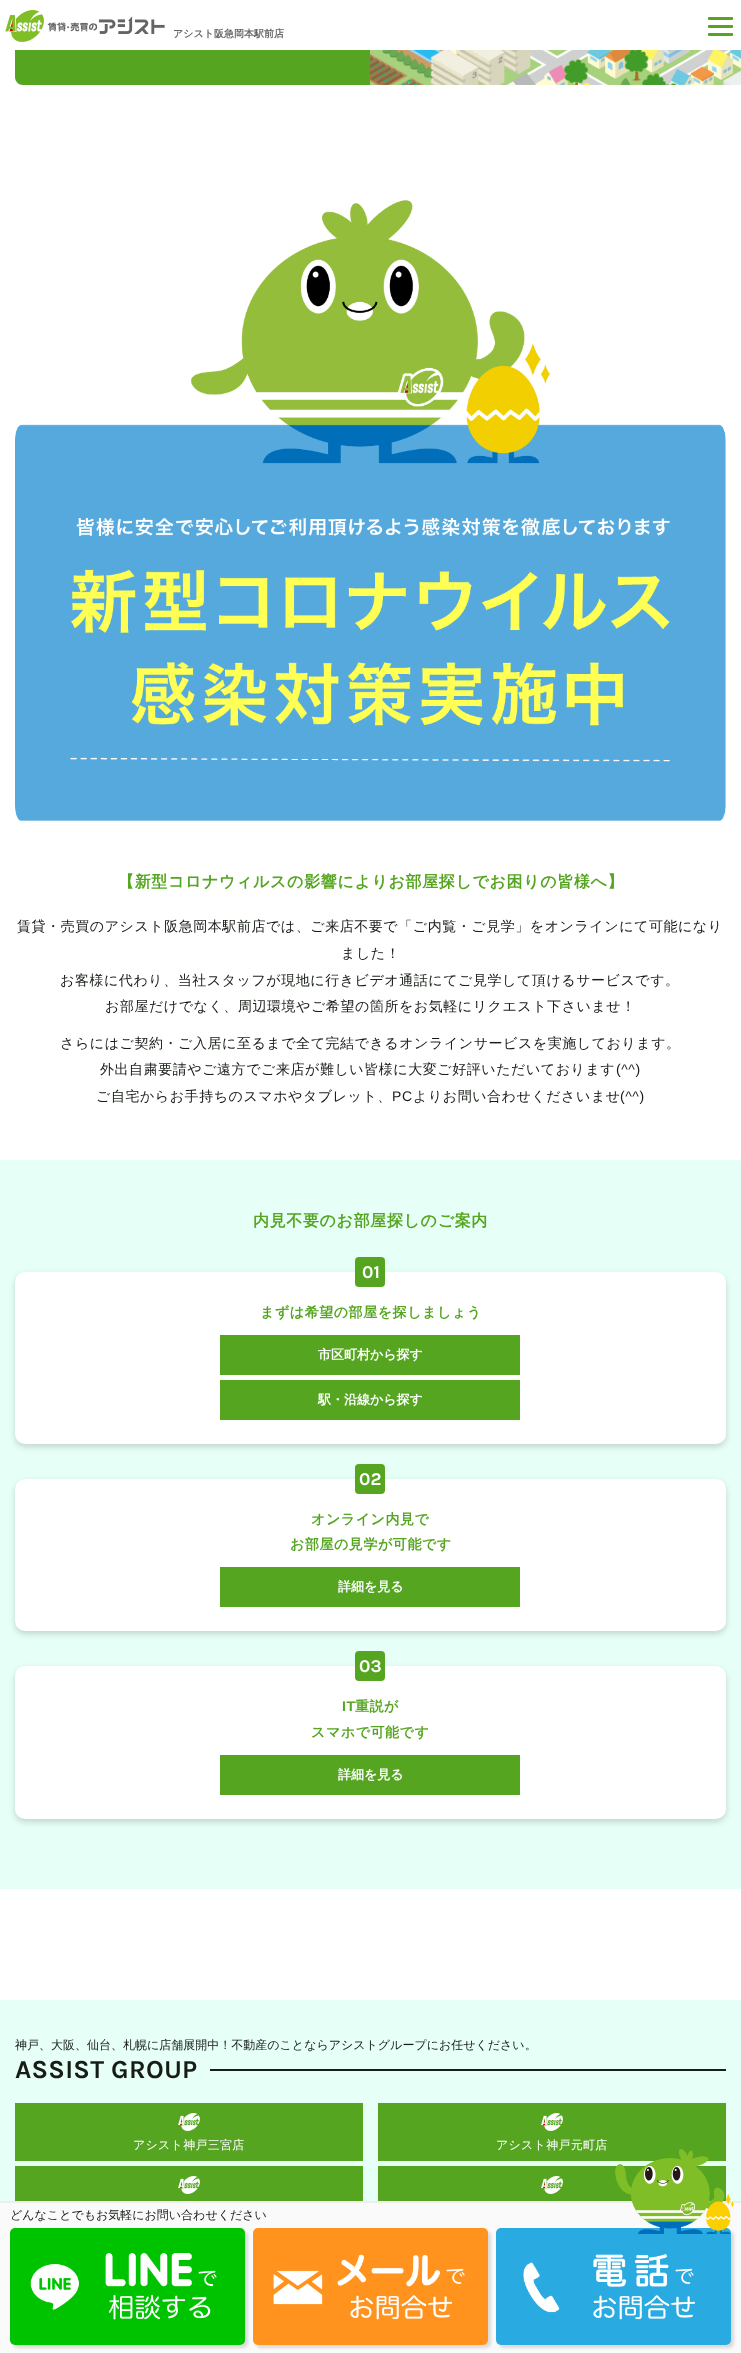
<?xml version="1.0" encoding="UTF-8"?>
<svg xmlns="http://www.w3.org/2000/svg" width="741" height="2353">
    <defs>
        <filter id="blur1" x="-50%" y="-200%" width="200%" height="500%"><feGaussianBlur stdDeviation="3"/></filter>
        <filter id="blur2" x="-50%" y="-200%" width="200%" height="500%"><feGaussianBlur stdDeviation="1.5"/></filter>
    </defs>
    <rect width="100%" height="100%" fill="#FFFFFF"/>
    <path d="M 23 -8 H 370 V 85 H 23 C 18.5 85 15 81.5 15 77 V 0 C 15 -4.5 18.5 -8 23 -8 Z" fill="#55A520"/>
    <image x="370" y="50" width="371" height="35" href="img_01.png"/>
    <rect x="15" y="0" width="355" height="50" fill="#FFFFFF"/>
    <rect x="708" y="17" width="25" height="3" rx="1" fill="#55A520"/>
    <rect x="708" y="25" width="25" height="3" rx="1" fill="#55A520"/>
    <rect x="708" y="33" width="25" height="3" rx="1" fill="#55A520"/>
    <image x="5" y="10" width="160" height="32" href="img_02.png"/>
    <text x="173" y="37" font-family="WenQuanYi Zen Hei" font-size="10" font-weight="700" fill="#656464">アシスト阪急岡本駅前店</text>
    <image x="15" y="200" width="711" height="621" href="img_03.png"/>
    <text x="118" y="887" font-family="WenQuanYi Zen Hei" font-size="16" font-weight="700" letter-spacing="0.65" fill="#55A520">【新型コロナウィルスの影響によりお部屋探しでお困りの皆様へ】</text>
    <text x="17" y="931" font-family="WenQuanYi Zen Hei" font-size="14" font-weight="500" letter-spacing="0.55" fill="#171D16">賃貸・売買のアシスト阪急岡本駅前店では、ご来店不要で「ご内覧・ご見学」をオンラインにて可能になり</text>
    <text x="341" y="958" font-family="WenQuanYi Zen Hei" font-size="14" font-weight="500" letter-spacing="0.55" fill="#171D16">ました！</text>
    <text x="60" y="985" font-family="WenQuanYi Zen Hei" font-size="14" font-weight="500" letter-spacing="0.55" fill="#171D16">お客様に代わり、当社スタッフが現地に行きビデオ通話にてご見学して頂けるサービスです。</text>
    <text x="105" y="1011" font-family="WenQuanYi Zen Hei" font-size="14" font-weight="500" letter-spacing="0.55" fill="#171D16">お部屋だけでなく、周辺環境やご希望の箇所をお気軽にリクエスト下さいませ！</text>
    <text x="60" y="1048" font-family="WenQuanYi Zen Hei" font-size="14" font-weight="500" letter-spacing="0.55" fill="#171D16">さらにはご契約・ご入居に至るまで全て完結できるオンラインサービスを実施しております。</text>
    <text x="100" y="1074" font-family="WenQuanYi Zen Hei" font-size="14" font-weight="500" letter-spacing="0.55" fill="#171D16">外出自粛要請やご遠方でご来店が難しい皆様に大変ご好評いただいております</text>
    <text x="616" y="1074" font-family="Liberation Sans" font-size="14" letter-spacing="0.55" fill="#171D16">(^^)</text>
    <text x="96" y="1101" font-family="WenQuanYi Zen Hei" font-size="14" font-weight="500" letter-spacing="0.55" fill="#171D16">ご自宅からお手持ちのスマホやタブレット、</text>
    <text x="392" y="1101" font-family="Liberation Sans" font-size="14" letter-spacing="0.55" fill="#171D16">PC</text>
    <text x="413" y="1101" font-family="WenQuanYi Zen Hei" font-size="14" font-weight="500" letter-spacing="0.55" fill="#171D16">よりお問い合わせくださいませ</text>
    <text x="620" y="1101" font-family="Liberation Sans" font-size="14" letter-spacing="0.55" fill="#171D16">(^^)</text>
    <rect x="0" y="1160" width="741" height="729" fill="#E6FFF7"/>
    <text x="253" y="1226" font-family="WenQuanYi Zen Hei" font-size="16" font-weight="700" letter-spacing="0.65" fill="#55A520">内見不要のお部屋探しのご案内</text>
    <rect x="15" y="1275" width="711" height="172" rx="10" fill="#000000" fill-opacity="0.16" filter="url(#blur1)"/>
    <rect x="15" y="1272" width="711" height="172" rx="10" fill="#FFFFFF"/>
    <rect x="355" y="1257" width="30" height="30" rx="4" fill="#55A520"/>
    <text x="362" y="1278" font-family="Karla" font-size="18" font-weight="700" fill="#FFFFFF">01</text>
    <text x="260" y="1317" font-family="WenQuanYi Zen Hei" font-size="14" font-weight="700" letter-spacing="0.55" fill="#55A520">まずは希望の部屋を探しましょう</text>
    <rect x="220" y="1335" width="300" height="40" fill="#55A520"/>
    <text x="318" y="1359" font-family="WenQuanYi Zen Hei" font-size="13" font-weight="700" fill="#FFFFFF">市区町村から探す</text>
    <rect x="220" y="1380" width="300" height="40" fill="#55A520"/>
    <text x="318" y="1404" font-family="WenQuanYi Zen Hei" font-size="13" font-weight="700" fill="#FFFFFF">駅・沿線から探す</text>
    <rect x="15" y="1482" width="711" height="152" rx="10" fill="#000000" fill-opacity="0.16" filter="url(#blur1)"/>
    <rect x="15" y="1479" width="711" height="152" rx="10" fill="#FFFFFF"/>
    <rect x="355" y="1464" width="30" height="30" rx="4" fill="#55A520"/>
    <text x="359" y="1485" font-family="Karla" font-size="18" font-weight="700" fill="#FFFFFF">02</text>
    <text x="311" y="1524" font-family="WenQuanYi Zen Hei" font-size="14" font-weight="700" letter-spacing="0.55" fill="#55A520">オンライン内見で</text>
    <text x="290" y="1549" font-family="WenQuanYi Zen Hei" font-size="14" font-weight="700" letter-spacing="0.55" fill="#55A520">お部屋の見学が可能です</text>
    <rect x="220" y="1567" width="300" height="40" fill="#55A520"/>
    <text x="338" y="1591" font-family="WenQuanYi Zen Hei" font-size="13" font-weight="700" fill="#FFFFFF">詳細を見る</text>
    <rect x="15" y="1669" width="711" height="153" rx="10" fill="#000000" fill-opacity="0.16" filter="url(#blur1)"/>
    <rect x="15" y="1666" width="711" height="153" rx="10" fill="#FFFFFF"/>
    <rect x="355" y="1651" width="30" height="30" rx="4" fill="#55A520"/>
    <text x="359" y="1672" font-family="Karla" font-size="18" font-weight="700" fill="#FFFFFF">03</text>
    <text x="342" y="1711" font-family="Liberation Sans" font-size="14" font-weight="700" letter-spacing="0.55" fill="#55A520">IT</text>
    <text x="355" y="1711" font-family="WenQuanYi Zen Hei" font-size="14" font-weight="700" letter-spacing="0.55" fill="#55A520">重説が</text>
    <text x="311" y="1737" font-family="WenQuanYi Zen Hei" font-size="14" font-weight="700" letter-spacing="0.55" fill="#55A520">スマホで可能です</text>
    <rect x="220" y="1755" width="300" height="40" fill="#55A520"/>
    <text x="338" y="1779" font-family="WenQuanYi Zen Hei" font-size="13" font-weight="700" fill="#FFFFFF">詳細を見る</text>
    <rect x="0" y="2000" width="741" height="201" fill="#E6FFF7"/>
    <text x="15" y="2049" font-family="WenQuanYi Zen Hei" font-size="12" font-weight="500" fill="#171D16">神戸、大阪、仙台、札幌に店舗展開中！不動産のことならアシストグループにお任せください。</text>
    <text x="15" y="2078" font-family="Karla" font-size="26" font-weight="700" letter-spacing="0.25" fill="#171D16">ASSIST GROUP</text>
    <rect x="210" y="2069" width="516" height="2" fill="#181D17"/>
    <rect x="15" y="2103" width="348" height="58" fill="#55A520"/>
    <image x="178" y="2113" width="22" height="18" href="img_04.png"/>
    <text x="133" y="2149" font-family="WenQuanYi Zen Hei" font-size="12" font-weight="500" letter-spacing="0.25" fill="#FFFFFF">アシスト神戸三宮店</text>
    <rect x="378" y="2103" width="348" height="58" fill="#55A520"/>
    <image x="541" y="2113" width="22" height="18" href="img_04.png"/>
    <text x="496" y="2149" font-family="WenQuanYi Zen Hei" font-size="12" font-weight="500" letter-spacing="0.25" fill="#FFFFFF">アシスト神戸元町店</text>
    <rect x="15" y="2166" width="348" height="35" fill="#55A520"/>
    <image x="178" y="2176" width="22" height="18" href="img_04.png"/>
    <rect x="378" y="2166" width="348" height="35" fill="#55A520"/>
    <image x="541" y="2176" width="22" height="18" href="img_04.png"/>
    <rect x="0" y="2203" width="741" height="150" fill="#FAFAFA"/>
    <rect x="0" y="2201" width="741" height="2" fill="#EEEEEE"/>
    <text x="10" y="2219" font-family="WenQuanYi Zen Hei" font-size="12" font-weight="500" fill="#171D16">どんなことでもお気軽にお問い合わせください</text>
    <rect x="13" y="2231" width="235" height="117" rx="5" fill="#000000" fill-opacity="0.13" filter="url(#blur2)"/>
    <image x="10" y="2228" width="235" height="117" href="img_05.png"/>
    <rect x="256" y="2231" width="235" height="117" rx="5" fill="#000000" fill-opacity="0.13" filter="url(#blur2)"/>
    <image x="253" y="2228" width="235" height="117" href="img_06.png"/>
    <rect x="499" y="2231" width="235" height="117" rx="5" fill="#000000" fill-opacity="0.13" filter="url(#blur2)"/>
    <image x="496" y="2228" width="235" height="117" href="img_07.png"/>
    <image x="615" y="2149" width="119" height="85" href="img_08.png"/>
</svg>
